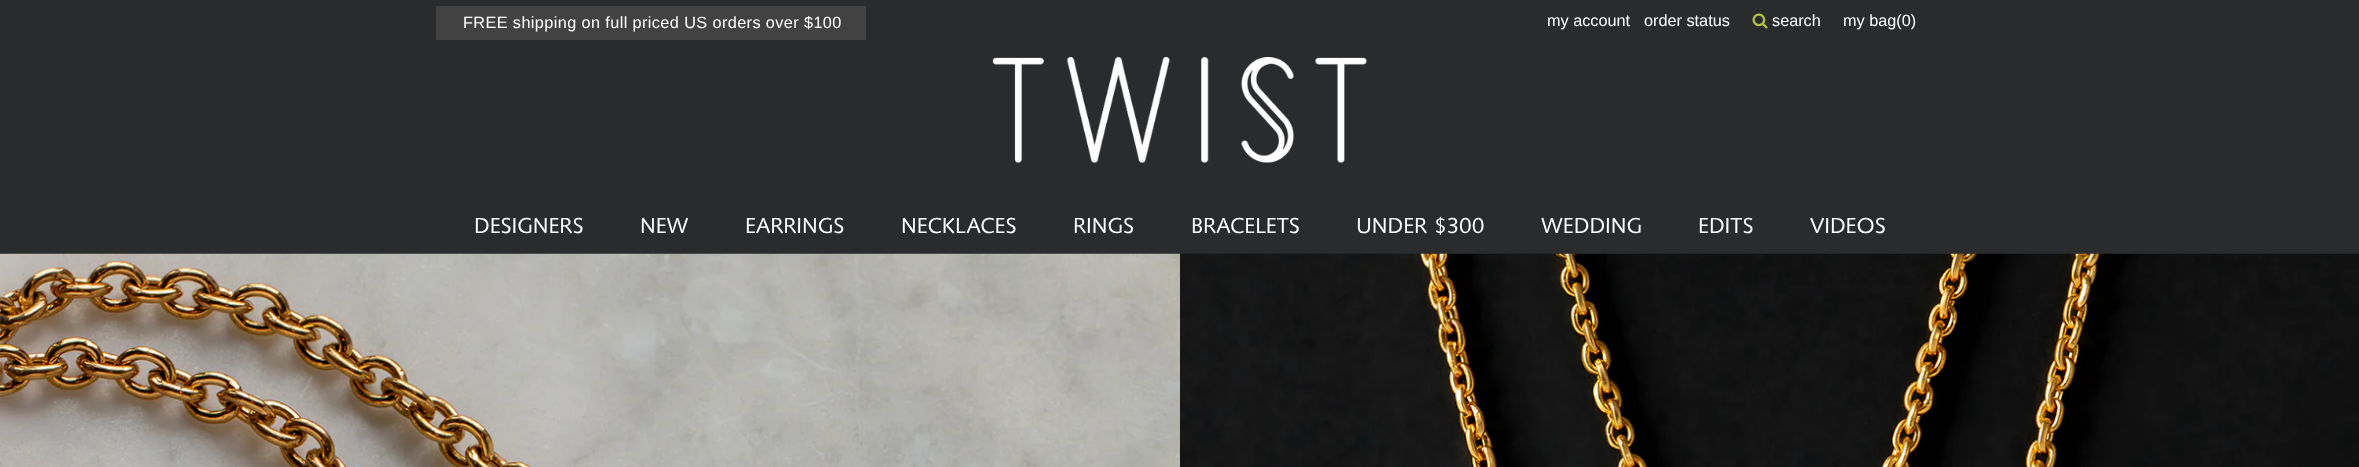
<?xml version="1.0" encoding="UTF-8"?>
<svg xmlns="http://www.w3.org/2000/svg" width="2359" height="467">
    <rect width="100%" height="100%" fill="#2A2B2D"/>
    <rect x="436" y="6" width="430" height="34" fill="#424242"/>
    <text x="463" y="28" font-family="Liberation Sans" font-size="16.25" letter-spacing="0.4" fill="#FFFFFF">FREE shipping on full priced US orders over $100</text>
    <text x="1547" y="26" font-family="Liberation Sans" font-size="16.25" fill="#FFFFFF">my account</text>
    <text x="1644" y="26" font-family="Liberation Sans" font-size="16.25" fill="#FFFFFF">order status</text>
    <image x="1752" y="13" width="16" height="16" href="img_01.png"/>
    <text x="1772" y="26" font-family="Liberation Sans" font-size="16.25" fill="#FFFFFF">search</text>
    <text x="1843" y="26" font-family="Liberation Sans" font-size="16.25" fill="#FFFFFF">my bag(0)</text>
    <image x="992" y="57" width="375" height="106" href="img_02.png"/>
    <text x="474" y="233" font-family="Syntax" font-size="22.5" fill="#FFFFFF">DESIGNERS</text>
    <text x="640" y="233" font-family="Syntax" font-size="22.5" fill="#FFFFFF">NEW</text>
    <text x="745" y="233" font-family="Syntax" font-size="22.5" fill="#FFFFFF">EARRINGS</text>
    <text x="901" y="233" font-family="Syntax" font-size="22.5" fill="#FFFFFF">NECKLACES</text>
    <text x="1073" y="233" font-family="Syntax" font-size="22.5" fill="#FFFFFF">RINGS</text>
    <text x="1191" y="233" font-family="Syntax" font-size="22.5" fill="#FFFFFF">BRACELETS</text>
    <text x="1356" y="233" font-family="Syntax" font-size="22.5" fill="#FFFFFF">UNDER $300</text>
    <text x="1541" y="233" font-family="Syntax" font-size="22.5" fill="#FFFFFF">WEDDING</text>
    <text x="1698" y="233" font-family="Syntax" font-size="22.5" fill="#FFFFFF">EDITS</text>
    <text x="1810" y="233" font-family="Syntax" font-size="22.5" fill="#FFFFFF">VIDEOS</text>
    <image x="0" y="253" width="1180" height="214" href="img_03.png"/>
    <image x="1180" y="253" width="1179" height="214" href="img_04.png"/>
</svg>
